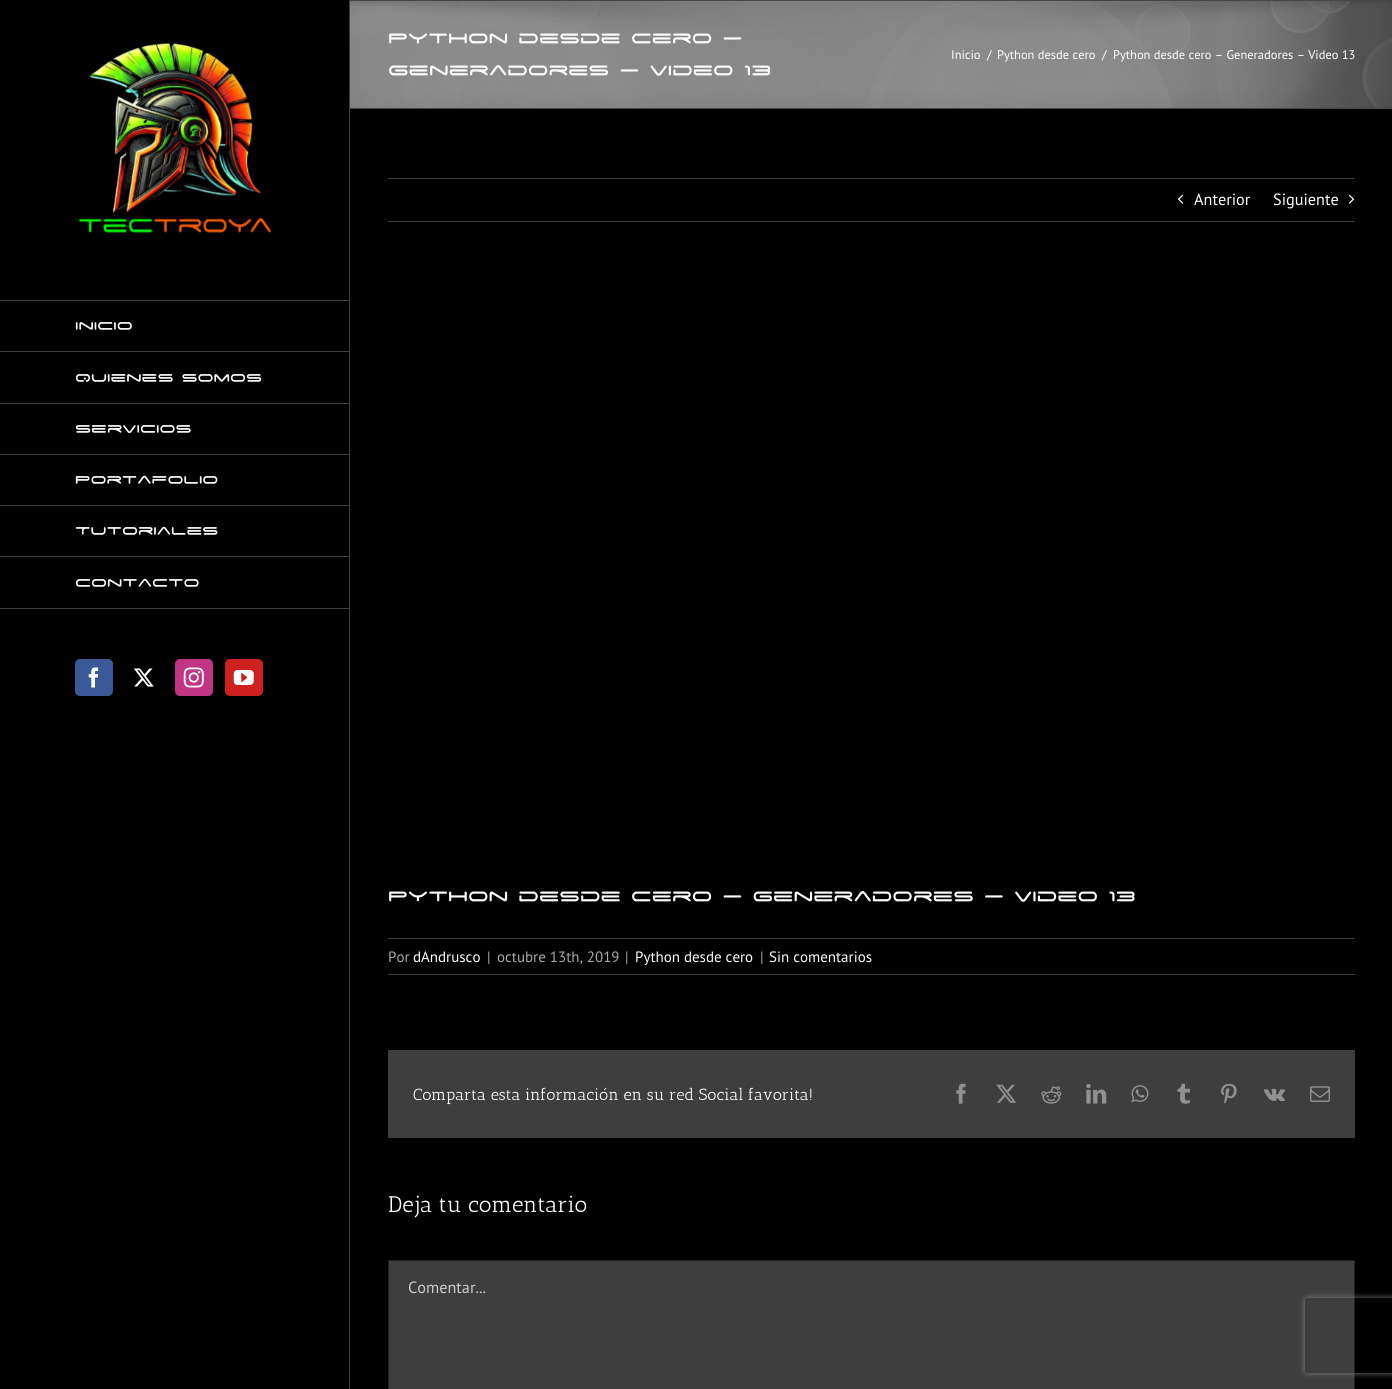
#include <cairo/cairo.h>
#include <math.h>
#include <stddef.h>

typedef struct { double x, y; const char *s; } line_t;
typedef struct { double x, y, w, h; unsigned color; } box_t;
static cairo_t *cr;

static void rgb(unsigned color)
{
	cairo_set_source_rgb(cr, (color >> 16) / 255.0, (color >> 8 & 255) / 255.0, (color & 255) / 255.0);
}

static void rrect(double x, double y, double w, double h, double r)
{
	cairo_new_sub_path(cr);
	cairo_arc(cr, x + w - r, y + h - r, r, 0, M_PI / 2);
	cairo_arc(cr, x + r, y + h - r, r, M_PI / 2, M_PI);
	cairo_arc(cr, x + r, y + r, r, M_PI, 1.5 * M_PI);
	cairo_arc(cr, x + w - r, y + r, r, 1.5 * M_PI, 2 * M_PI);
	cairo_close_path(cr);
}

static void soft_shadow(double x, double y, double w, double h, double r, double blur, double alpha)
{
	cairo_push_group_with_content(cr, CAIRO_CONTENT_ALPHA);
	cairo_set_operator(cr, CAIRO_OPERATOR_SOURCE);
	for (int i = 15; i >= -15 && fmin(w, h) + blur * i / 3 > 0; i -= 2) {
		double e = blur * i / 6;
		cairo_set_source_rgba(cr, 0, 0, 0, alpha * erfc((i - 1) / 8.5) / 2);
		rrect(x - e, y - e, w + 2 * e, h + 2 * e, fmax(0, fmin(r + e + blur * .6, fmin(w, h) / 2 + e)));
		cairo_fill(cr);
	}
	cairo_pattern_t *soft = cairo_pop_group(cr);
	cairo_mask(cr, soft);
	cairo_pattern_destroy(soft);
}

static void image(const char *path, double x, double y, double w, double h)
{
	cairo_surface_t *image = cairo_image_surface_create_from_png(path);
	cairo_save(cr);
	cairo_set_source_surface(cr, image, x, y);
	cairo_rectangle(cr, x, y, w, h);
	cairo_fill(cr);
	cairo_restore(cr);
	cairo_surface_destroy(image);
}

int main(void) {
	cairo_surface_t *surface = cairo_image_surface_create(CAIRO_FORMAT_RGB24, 1392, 1389);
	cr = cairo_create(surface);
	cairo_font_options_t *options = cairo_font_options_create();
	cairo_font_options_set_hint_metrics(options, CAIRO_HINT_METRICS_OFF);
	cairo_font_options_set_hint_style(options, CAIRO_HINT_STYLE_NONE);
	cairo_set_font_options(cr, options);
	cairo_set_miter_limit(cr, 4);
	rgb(0x000000);
	cairo_paint(cr);
	rgb(0x353535);
	cairo_rectangle(cr, 350, 1, 1042, 107);
	cairo_fill(cr);
	image("img/1.png", 350, 1, 1042, 107);
	rgb(0x464646);
	cairo_rectangle(cr, 350, 0, 1042, 1);
	cairo_fill(cr);
	cairo_rectangle(cr, 350, 108, 1042, 1);
	cairo_fill(cr);
	image("img/2.png", 78, 43, 194, 190);
	{
		static const box_t items[] = {
			{349, 0, 1, 1389, 0x3e3e3e},
			{0, 300, 350, 1, 0x3e3e3e},
			{0, 351, 350, 1, 0x3e3e3e},
			{0, 403, 350, 1, 0x3e3e3e},
			{0, 454, 350, 1, 0x3e3e3e},
			{0, 505, 350, 1, 0x3e3e3e},
			{0, 556, 350, 1, 0x3e3e3e},
			{0, 608, 350, 1, 0x3e3e3e},
		};
		for (size_t i = 0; i < sizeof items / sizeof *items; i++) {
			rgb(items[i].color);
			cairo_rectangle(cr, items[i].x, items[i].y, items[i].w, items[i].h);
			cairo_fill(cr);
		}
	}
	rgb(0x3b5998);
	rrect(75.5, 659.5, 37, 36, 4.5);
	cairo_fill_preserve(cr);
	cairo_set_line_width(cr, 1);
	cairo_stroke(cr);
	image("img/3.png", 88, 667, 11, 21);
	image("img/4.png", 133, 668, 21, 19);
	rgb(0xc13584);
	rrect(175.5, 659.5, 37, 36, 4.5);
	cairo_fill_preserve(cr);
	cairo_stroke(cr);
	image("img/5.png", 183, 667, 21, 21);
	rgb(0xcd201f);
	rrect(225.5, 659.5, 37, 36, 4.5);
	cairo_fill_preserve(cr);
	cairo_stroke(cr);
	image("img/6.png", 233, 670, 21, 15);
	rgb(0x3e3e3e);
	cairo_rectangle(cr, 388, 178, 967, 1);
	cairo_fill(cr);
	cairo_rectangle(cr, 388, 221, 967, 1);
	cairo_fill(cr);
	image("img/7.png", 1178, 194, 6, 10);
	image("img/8.png", 1348, 194, 7, 10);
	{
		static const box_t items[] = {
			{388, 938, 967, 1, 0x3e3e3e},
			{388, 974, 967, 1, 0x3e3e3e},
			{388, 1050, 967, 88, 0x3e3e3e},
		};
		for (size_t i = 0; i < sizeof items / sizeof *items; i++) {
			rgb(items[i].color);
			cairo_rectangle(cr, items[i].x, items[i].y, items[i].w, items[i].h);
			cairo_fill(cr);
		}
	}
	image("img/9.png", 956, 1083, 10, 21);
	image("img/10.png", 996, 1084, 20, 19);
	image("img/11.png", 1041, 1086, 21, 18);
	image("img/12.png", 1086, 1083, 21, 21);
	image("img/13.png", 1131, 1085, 18, 18);
	image("img/14.png", 1177, 1083, 13, 21);
	image("img/15.png", 1221, 1083, 16, 21);
	image("img/16.png", 1263, 1088, 23, 14);
	image("img/17.png", 1310, 1086, 20, 16);
	cairo_rectangle(cr, 388.5, 1260.5, 966, 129);
	cairo_fill_preserve(cr);
	rgb(0x212122);
	cairo_stroke(cr);
	cairo_save(cr);
	cairo_set_fill_rule(cr, CAIRO_FILL_RULE_EVEN_ODD);
	cairo_new_path(cr);
	cairo_move_to(cr, 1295, 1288);
	cairo_line_to(cr, 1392, 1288);
	cairo_line_to(cr, 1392, 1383);
	cairo_line_to(cr, 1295, 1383);
	cairo_close_path(cr);
	cairo_move_to(cr, 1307.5, 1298);
	cairo_line_to(cr, 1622.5, 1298);
	cairo_curve_to(cr, 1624, 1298, 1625, 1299, 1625, 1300.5);
	cairo_line_to(cr, 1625, 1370.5);
	cairo_curve_to(cr, 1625, 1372, 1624, 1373, 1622.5, 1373);
	cairo_line_to(cr, 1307.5, 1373);
	cairo_curve_to(cr, 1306, 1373, 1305, 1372, 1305, 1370.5);
	cairo_line_to(cr, 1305, 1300.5);
	cairo_curve_to(cr, 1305, 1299, 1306, 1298, 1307.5, 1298);
	cairo_close_path(cr);
	cairo_clip(cr);
	rgb(0x808080);
	soft_shadow(1305, 1298, 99, 75, 2.5, 3, 1);
	cairo_restore(cr);
	cairo_select_font_face(cr, "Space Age", CAIRO_FONT_SLANT_NORMAL, CAIRO_FONT_WEIGHT_NORMAL);
	cairo_set_font_size(cr, 22.5);
	rgb(0xffffff);
	cairo_move_to(cr, 388, 45);
	cairo_show_text(cr, "Python desde cero –");
	cairo_move_to(cr, 388, 77);
	cairo_show_text(cr, "Generadores – Video 13");
	cairo_select_font_face(cr, "PT Sans", CAIRO_FONT_SLANT_NORMAL, CAIRO_FONT_WEIGHT_NORMAL);
	cairo_set_font_size(cr, 12.5);
	{
		static const line_t items[] = {
			{951, 59, "Inicio"},
			{987, 59, "/"},
			{997, 59, "Python desde cero"},
			{1102, 59, "/"},
			{1113, 59, "Python desde cero – Generadores – Video 13"},
		};
		for (size_t i = 0; i < sizeof items / sizeof *items; i++) {
			cairo_move_to(cr, items[i].x, items[i].y);
			cairo_show_text(cr, items[i].s);
		}
	}
	cairo_select_font_face(cr, "Space Age", CAIRO_FONT_SLANT_NORMAL, CAIRO_FONT_WEIGHT_NORMAL);
	cairo_set_font_size(cr, 17.5);
	{
		static const line_t items[] = {
			{75, 331, "Inicio"},
			{75, 383, "Quienes somos"},
			{75, 434, "Servicios"},
			{75, 485, "Portafolio"},
			{75, 536, "Tutoriales"},
			{75, 588, "Contacto"},
		};
		for (size_t i = 0; i < sizeof items / sizeof *items; i++) {
			cairo_move_to(cr, items[i].x, items[i].y);
			cairo_show_text(cr, items[i].s);
		}
	}
	cairo_select_font_face(cr, "PT Sans", CAIRO_FONT_SLANT_NORMAL, CAIRO_FONT_WEIGHT_NORMAL);
	cairo_set_font_size(cr, 16.25);
	cairo_move_to(cr, 1194, 205);
	cairo_show_text(cr, "Anterior");
	cairo_move_to(cr, 1273, 205);
	cairo_show_text(cr, "Siguiente");
	cairo_select_font_face(cr, "Space Age", CAIRO_FONT_SLANT_NORMAL, CAIRO_FONT_WEIGHT_NORMAL);
	cairo_set_font_size(cr, 22.5);
	cairo_move_to(cr, 388, 903);
	cairo_show_text(cr, "Python desde cero – Generadores – Video 13");
	cairo_select_font_face(cr, "PT Sans", CAIRO_FONT_SLANT_NORMAL, CAIRO_FONT_WEIGHT_NORMAL);
	cairo_set_font_size(cr, 15);
	rgb(0xaaa9a9);
	cairo_move_to(cr, 388, 962);
	cairo_show_text(cr, "Por");
	rgb(0xffffff);
	cairo_move_to(cr, 413, 962);
	cairo_show_text(cr, "dAndrusco");
	rgb(0xaaa9a9);
	{
		static const line_t items[] = {
			{487, 962, "|"},
			{497, 962, "octubre 13th, 2019"},
			{625, 962, "|"},
		};
		for (size_t i = 0; i < sizeof items / sizeof *items; i++) {
			cairo_move_to(cr, items[i].x, items[i].y);
			cairo_show_text(cr, items[i].s);
		}
	}
	rgb(0xffffff);
	cairo_move_to(cr, 635, 962);
	cairo_show_text(cr, "Python desde cero");
	rgb(0xaaa9a9);
	cairo_move_to(cr, 760, 962);
	cairo_show_text(cr, "|");
	rgb(0xffffff);
	cairo_move_to(cr, 769, 962);
	cairo_show_text(cr, "Sin comentarios");
	cairo_select_font_face(cr, "Antic Slab", CAIRO_FONT_SLANT_NORMAL, CAIRO_FONT_WEIGHT_NORMAL);
	cairo_set_font_size(cr, 16.25);
	cairo_move_to(cr, 413, 1100);
	cairo_show_text(cr, "Comparta esta información en su red Social favorita!");
	cairo_set_font_size(cr, 22.5);
	cairo_move_to(cr, 388, 1212);
	cairo_show_text(cr, "Deja tu comentario");
	cairo_select_font_face(cr, "PT Sans", CAIRO_FONT_SLANT_NORMAL, CAIRO_FONT_WEIGHT_NORMAL);
	cairo_set_font_size(cr, 16.25);
	rgb(0xcccccc);
	cairo_move_to(cr, 408, 1293);
	cairo_show_text(cr, "Comentar...");
	cairo_surface_write_to_png(surface, "page.png");
	cairo_font_options_destroy(options);
	cairo_destroy(cr);
	cairo_surface_destroy(surface);
	return 0;
}
